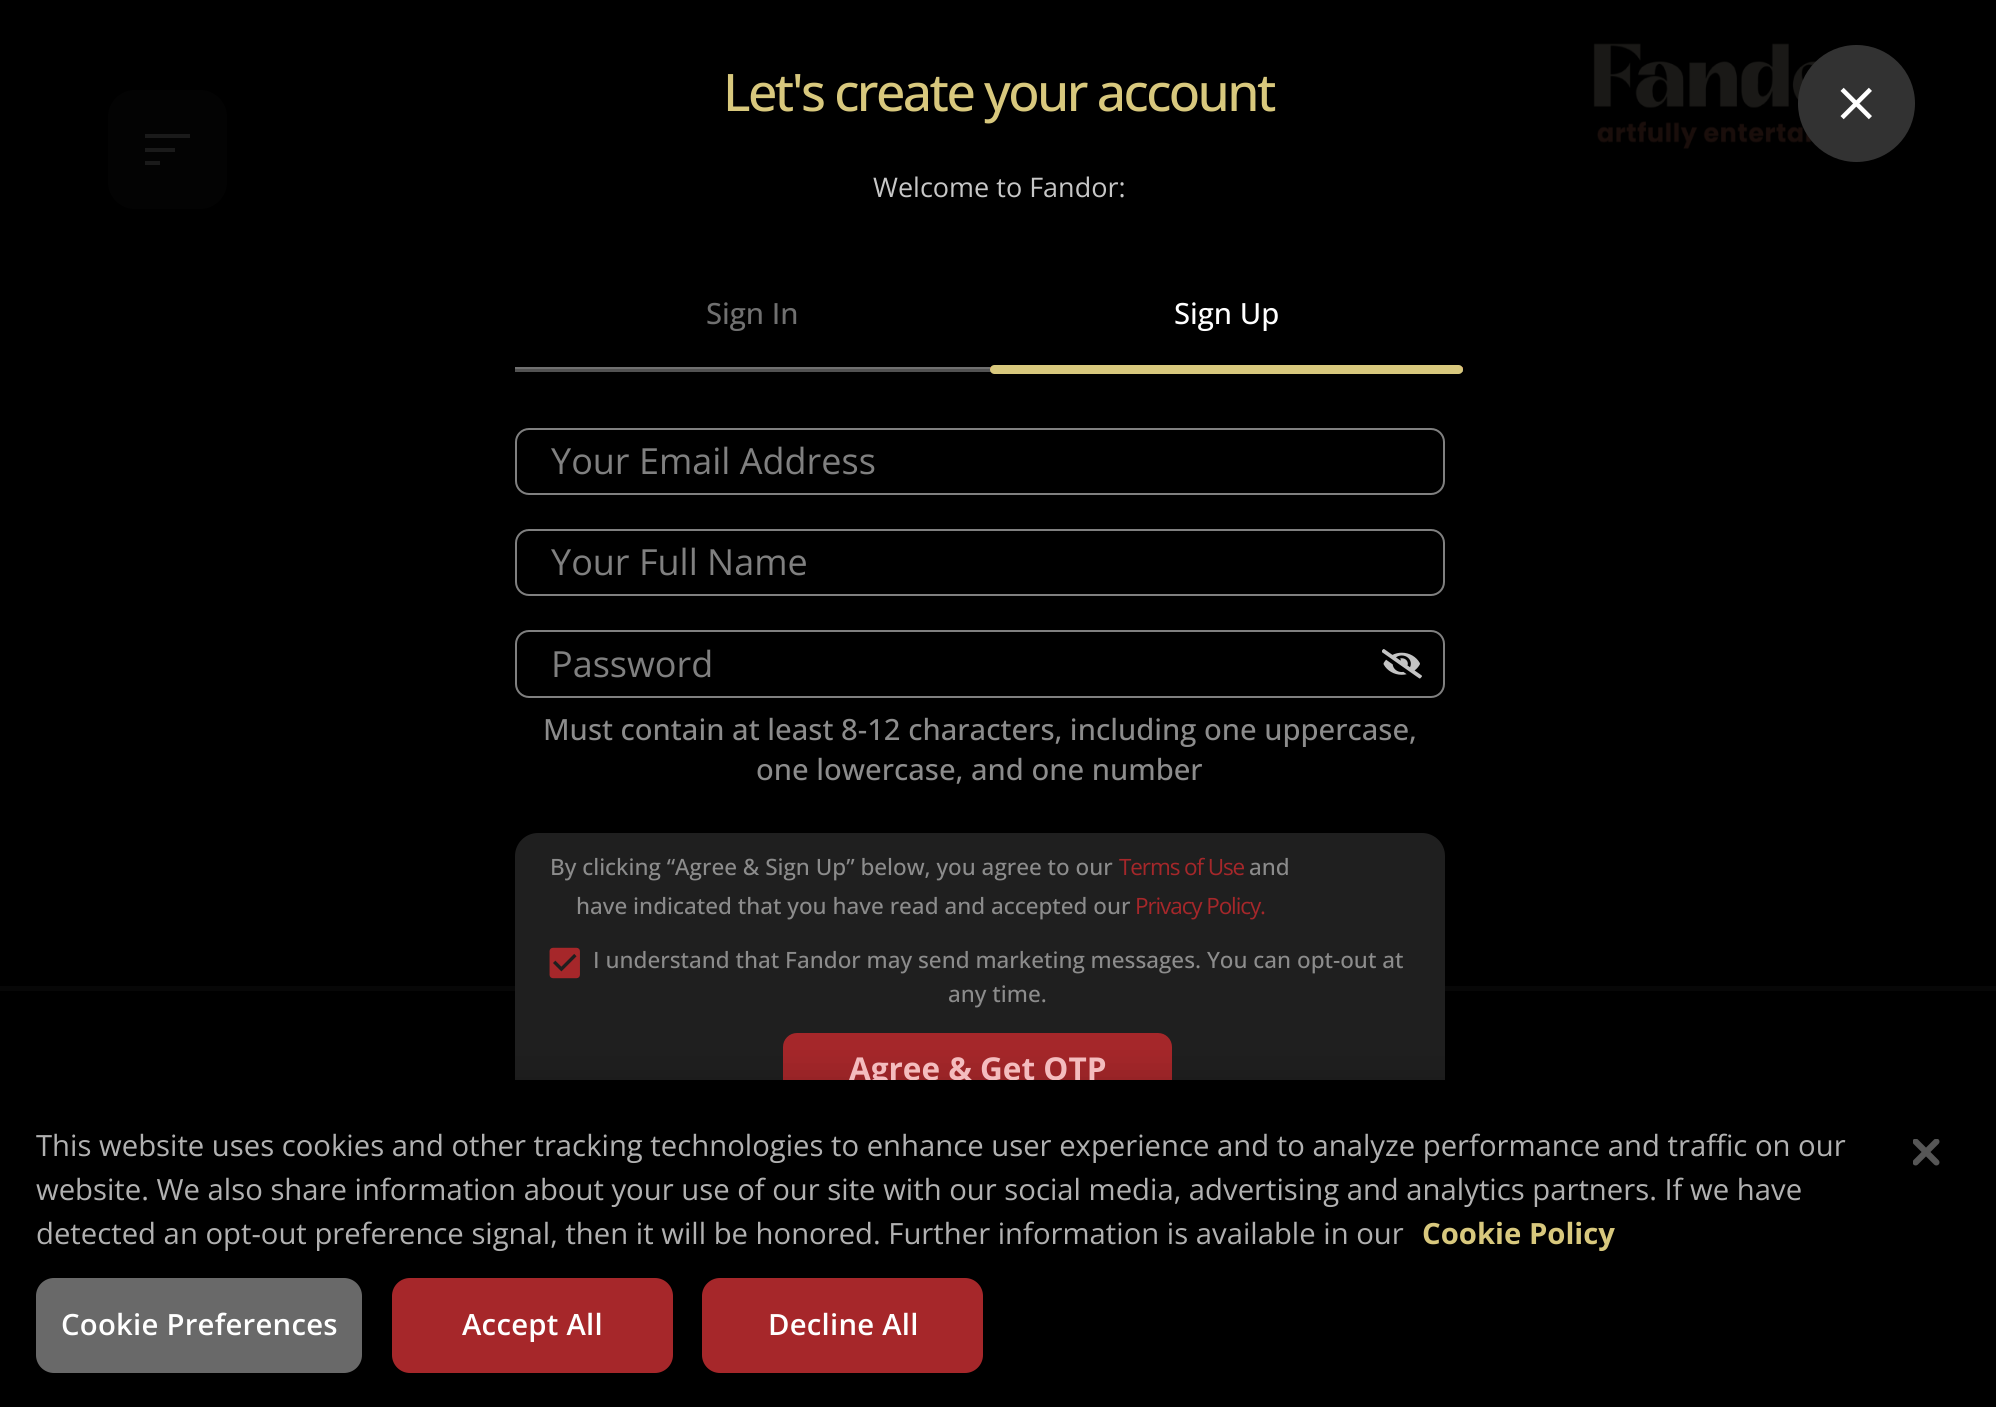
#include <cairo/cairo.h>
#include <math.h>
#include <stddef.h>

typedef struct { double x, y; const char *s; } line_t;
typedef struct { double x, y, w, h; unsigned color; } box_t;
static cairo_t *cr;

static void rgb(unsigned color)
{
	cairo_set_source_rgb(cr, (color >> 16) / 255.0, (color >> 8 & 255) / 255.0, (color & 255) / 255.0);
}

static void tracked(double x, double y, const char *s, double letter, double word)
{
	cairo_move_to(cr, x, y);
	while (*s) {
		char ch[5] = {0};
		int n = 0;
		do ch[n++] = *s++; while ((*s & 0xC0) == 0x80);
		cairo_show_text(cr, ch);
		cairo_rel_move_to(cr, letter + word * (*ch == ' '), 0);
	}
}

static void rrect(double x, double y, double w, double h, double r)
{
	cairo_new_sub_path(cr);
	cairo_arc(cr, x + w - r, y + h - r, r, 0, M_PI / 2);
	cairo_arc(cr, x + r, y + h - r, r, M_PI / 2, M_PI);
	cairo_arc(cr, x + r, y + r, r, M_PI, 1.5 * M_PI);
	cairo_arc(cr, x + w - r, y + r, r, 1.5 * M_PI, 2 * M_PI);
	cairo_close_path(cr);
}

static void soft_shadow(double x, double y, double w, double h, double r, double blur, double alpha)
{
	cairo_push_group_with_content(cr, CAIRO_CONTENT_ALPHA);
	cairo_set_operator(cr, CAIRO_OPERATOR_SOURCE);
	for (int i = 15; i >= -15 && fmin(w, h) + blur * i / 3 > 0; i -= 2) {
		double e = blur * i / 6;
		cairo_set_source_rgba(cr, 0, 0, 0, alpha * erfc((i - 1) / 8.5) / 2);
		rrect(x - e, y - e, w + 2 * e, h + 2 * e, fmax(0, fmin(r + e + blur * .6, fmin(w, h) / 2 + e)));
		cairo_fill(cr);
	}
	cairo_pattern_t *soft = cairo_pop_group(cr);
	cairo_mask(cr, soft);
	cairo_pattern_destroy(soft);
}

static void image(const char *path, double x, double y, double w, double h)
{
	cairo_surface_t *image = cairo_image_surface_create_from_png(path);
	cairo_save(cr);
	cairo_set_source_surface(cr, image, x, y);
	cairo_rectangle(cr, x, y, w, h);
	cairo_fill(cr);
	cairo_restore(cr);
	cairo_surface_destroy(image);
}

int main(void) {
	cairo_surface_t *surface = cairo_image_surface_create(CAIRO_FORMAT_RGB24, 1996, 1407);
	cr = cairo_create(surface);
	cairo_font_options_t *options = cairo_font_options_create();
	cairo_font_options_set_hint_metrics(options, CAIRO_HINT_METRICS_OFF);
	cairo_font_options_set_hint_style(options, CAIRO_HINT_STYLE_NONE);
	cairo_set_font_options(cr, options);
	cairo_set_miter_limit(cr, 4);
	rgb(0x000000);
	cairo_paint(cr);
	rgb(0x030303);
	rrect(108, 90, 119, 119, 27);
	cairo_fill(cr);
	rgb(0x1a1a1a);
	cairo_new_path(cr);
	cairo_move_to(cr, 145, 165);
	cairo_line_to(cr, 145, 161);
	cairo_line_to(cr, 160, 161);
	cairo_line_to(cr, 160, 165);
	cairo_close_path(cr);
	cairo_move_to(cr, 145, 152);
	cairo_line_to(cr, 145, 148);
	cairo_line_to(cr, 175, 148);
	cairo_line_to(cr, 175, 152);
	cairo_close_path(cr);
	cairo_move_to(cr, 145, 138);
	cairo_line_to(cr, 145, 134);
	cairo_line_to(cr, 190, 134);
	cairo_line_to(cr, 190, 138);
	cairo_close_path(cr);
	cairo_fill(cr);
	image("img/1.png", 1593, 43, 224, 106);
	{
		static const box_t items[] = {
			{0, 986, 1996, 5, 0x070707},
			{515, 369, 948, 3, 0x525252},
			{515, 367, 475, 2, 0x707070},
			{990, 367, 473, 2, 0xa6272a},
		};
		for (size_t i = 0; i < sizeof items / sizeof *items; i++) {
			rgb(items[i].color);
			cairo_rectangle(cr, items[i].x, items[i].y, items[i].w, items[i].h);
			cairo_fill(cr);
		}
	}
	rgb(0xd8c87d);
	rrect(990, 365, 473, 9, 4.5);
	cairo_fill(cr);
	rrect(516, 429, 928, 65, 13);
	rgb(0x808080);
	cairo_stroke(cr);
	rrect(516, 530, 928, 65, 13);
	cairo_stroke(cr);
	rrect(516, 631, 928, 66, 13);
	cairo_stroke(cr);
	image("img/2.png", 1382, 649, 40, 30);
	rgb(0x1f1f1f);
	rrect(515, 833, 930, 294, 23);
	cairo_fill(cr);
	image("img/3.png", 549, 947, 31, 32);
	rgb(0xa6272a);
	rrect(783, 1033, 389, 67, 14);
	cairo_fill(cr);
	rgb(0x323232);
	cairo_arc(cr, 1856.5, 103.5, 58.5, 0, 2 * M_PI);
	cairo_fill(cr);
	image("img/4.png", 1840, 87, 32, 33);
	rgb(0x000000);
	soft_shadow(0, 1080, 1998, 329, 0, 20, 0.2);
	rgb(0x696969);
	rrect(37, 1279, 324, 93, 17);
	cairo_fill_preserve(cr);
	cairo_stroke(cr);
	rgb(0xa6272a);
	rrect(393, 1279, 279, 93, 17);
	cairo_fill_preserve(cr);
	cairo_stroke(cr);
	rrect(703, 1279, 279, 93, 17);
	cairo_fill_preserve(cr);
	cairo_stroke(cr);
	image("img/5.png", 1913, 1139, 27, 27);
	cairo_select_font_face(cr, "Open Sans Medium", CAIRO_FONT_SLANT_NORMAL, CAIRO_FONT_WEIGHT_NORMAL);
	cairo_set_font_size(cr, 51.75);
	rgb(0xd8c87d);
	tracked(723, 111, "Let's create your account", -2.6, 0);
	cairo_select_font_face(cr, "Open Sans", CAIRO_FONT_SLANT_NORMAL, CAIRO_FONT_WEIGHT_NORMAL);
	cairo_set_font_size(cr, 27);
	rgb(0xc7c7c7);
	cairo_move_to(cr, 873, 197);
	cairo_show_text(cr, "Welcome to Fandor:");
	cairo_select_font_face(cr, "Open Sans Medium", CAIRO_FONT_SLANT_NORMAL, CAIRO_FONT_WEIGHT_NORMAL);
	cairo_set_font_size(cr, 29.25);
	rgb(0x707070);
	cairo_move_to(cr, 706, 324);
	cairo_show_text(cr, "Sign In");
	rgb(0xffffff);
	cairo_move_to(cr, 1174, 324);
	cairo_show_text(cr, "Sign Up");
	cairo_select_font_face(cr, "Open Sans", CAIRO_FONT_SLANT_NORMAL, CAIRO_FONT_WEIGHT_NORMAL);
	cairo_set_font_size(cr, 36);
	rgb(0x808080);
	{
		static const line_t items[] = {
			{551, 474, "Your Email Address"},
			{551, 575, "Your Full Name"},
			{551, 677, "Password"},
		};
		for (size_t i = 0; i < sizeof items / sizeof *items; i++) {
			cairo_move_to(cr, items[i].x, items[i].y);
			cairo_show_text(cr, items[i].s);
		}
	}
	cairo_select_font_face(cr, "Open Sans Medium", CAIRO_FONT_SLANT_NORMAL, CAIRO_FONT_WEIGHT_NORMAL);
	cairo_set_font_size(cr, 29.25);
	rgb(0x8c8c8c);
	cairo_move_to(cr, 543, 740);
	cairo_show_text(cr, "Must contain at least 8-12 characters, including one uppercase,");
	cairo_move_to(cr, 756, 780);
	cairo_show_text(cr, "one lowercase, and one number");
	cairo_set_font_size(cr, 22.5);
	cairo_move_to(cr, 550, 875);
	cairo_show_text(cr, "By clicking “Agree & Sign Up” below, you agree to our");
	cairo_select_font_face(cr, "Open Sans", CAIRO_FONT_SLANT_NORMAL, CAIRO_FONT_WEIGHT_NORMAL);
	rgb(0xa6272a);
	tracked(1119, 875, "Terms of Use", -1.1, 0);
	cairo_select_font_face(cr, "Open Sans Medium", CAIRO_FONT_SLANT_NORMAL, CAIRO_FONT_WEIGHT_NORMAL);
	rgb(0x8c8c8c);
	cairo_move_to(cr, 1249, 875);
	cairo_show_text(cr, "and");
	cairo_move_to(cr, 576, 914);
	cairo_show_text(cr, "have indicated that you have read and accepted our");
	cairo_select_font_face(cr, "Open Sans", CAIRO_FONT_SLANT_NORMAL, CAIRO_FONT_WEIGHT_NORMAL);
	rgb(0xa6272a);
	tracked(1135, 914, "Privacy Policy.", -1.1, 0);
	cairo_select_font_face(cr, "Open Sans Medium", CAIRO_FONT_SLANT_NORMAL, CAIRO_FONT_WEIGHT_NORMAL);
	rgb(0x8c8c8c);
	cairo_move_to(cr, 593, 968);
	cairo_show_text(cr, "I understand that Fandor may send marketing messages. You can opt-out at");
	cairo_move_to(cr, 948, 1002);
	cairo_show_text(cr, "any time.");
	cairo_select_font_face(cr, "Open Sans", CAIRO_FONT_SLANT_NORMAL, CAIRO_FONT_WEIGHT_BOLD);
	cairo_set_font_size(cr, 31.5);
	rgb(0xf4bcbe);
	cairo_move_to(cr, 849, 1080);
	cairo_show_text(cr, "Agree & Get OTP");
	rgb(0x000000);
	cairo_rectangle(cr, 515, 1080, 930, 47);
	cairo_fill(cr);
	cairo_select_font_face(cr, "Open Sans", CAIRO_FONT_SLANT_NORMAL, CAIRO_FONT_WEIGHT_NORMAL);
	cairo_set_font_size(cr, 29.27);
	rgb(0xb1b1b1);
	{
		static const line_t items[] = {
			{36, 1156, "This website uses cookies and other tracking technologies to enhance user experience and to analyze performance and traffic on our"},
			{36, 1200, "website. We also share information about your use of our site with our social media, advertising and analytics partners. If we have"},
			{36, 1244, "detected an opt-out preference signal, then it will be honored. Further information is available in our"},
		};
		for (size_t i = 0; i < sizeof items / sizeof *items; i++) {
			cairo_move_to(cr, items[i].x, items[i].y);
			cairo_show_text(cr, items[i].s);
		}
	}
	cairo_select_font_face(cr, "Open Sans", CAIRO_FONT_SLANT_NORMAL, CAIRO_FONT_WEIGHT_BOLD);
	rgb(0xd8c87d);
	cairo_move_to(cr, 1422, 1244);
	cairo_show_text(cr, "Cookie Policy");
	cairo_select_font_face(cr, "Open Sans SemiBold", CAIRO_FONT_SLANT_NORMAL, CAIRO_FONT_WEIGHT_NORMAL);
	rgb(0xffffff);
	{
		static const line_t items[] = {
			{61, 1335, "Cookie Preferences"},
			{462, 1335, "Accept All"},
			{768, 1335, "Decline All"},
		};
		for (size_t i = 0; i < sizeof items / sizeof *items; i++) {
			tracked(items[i].x, items[i].y, items[i].s, 0.25, 0);
		}
	}
	cairo_surface_write_to_png(surface, "page.png");
	cairo_font_options_destroy(options);
	cairo_destroy(cr);
	cairo_surface_destroy(surface);
	return 0;
}
